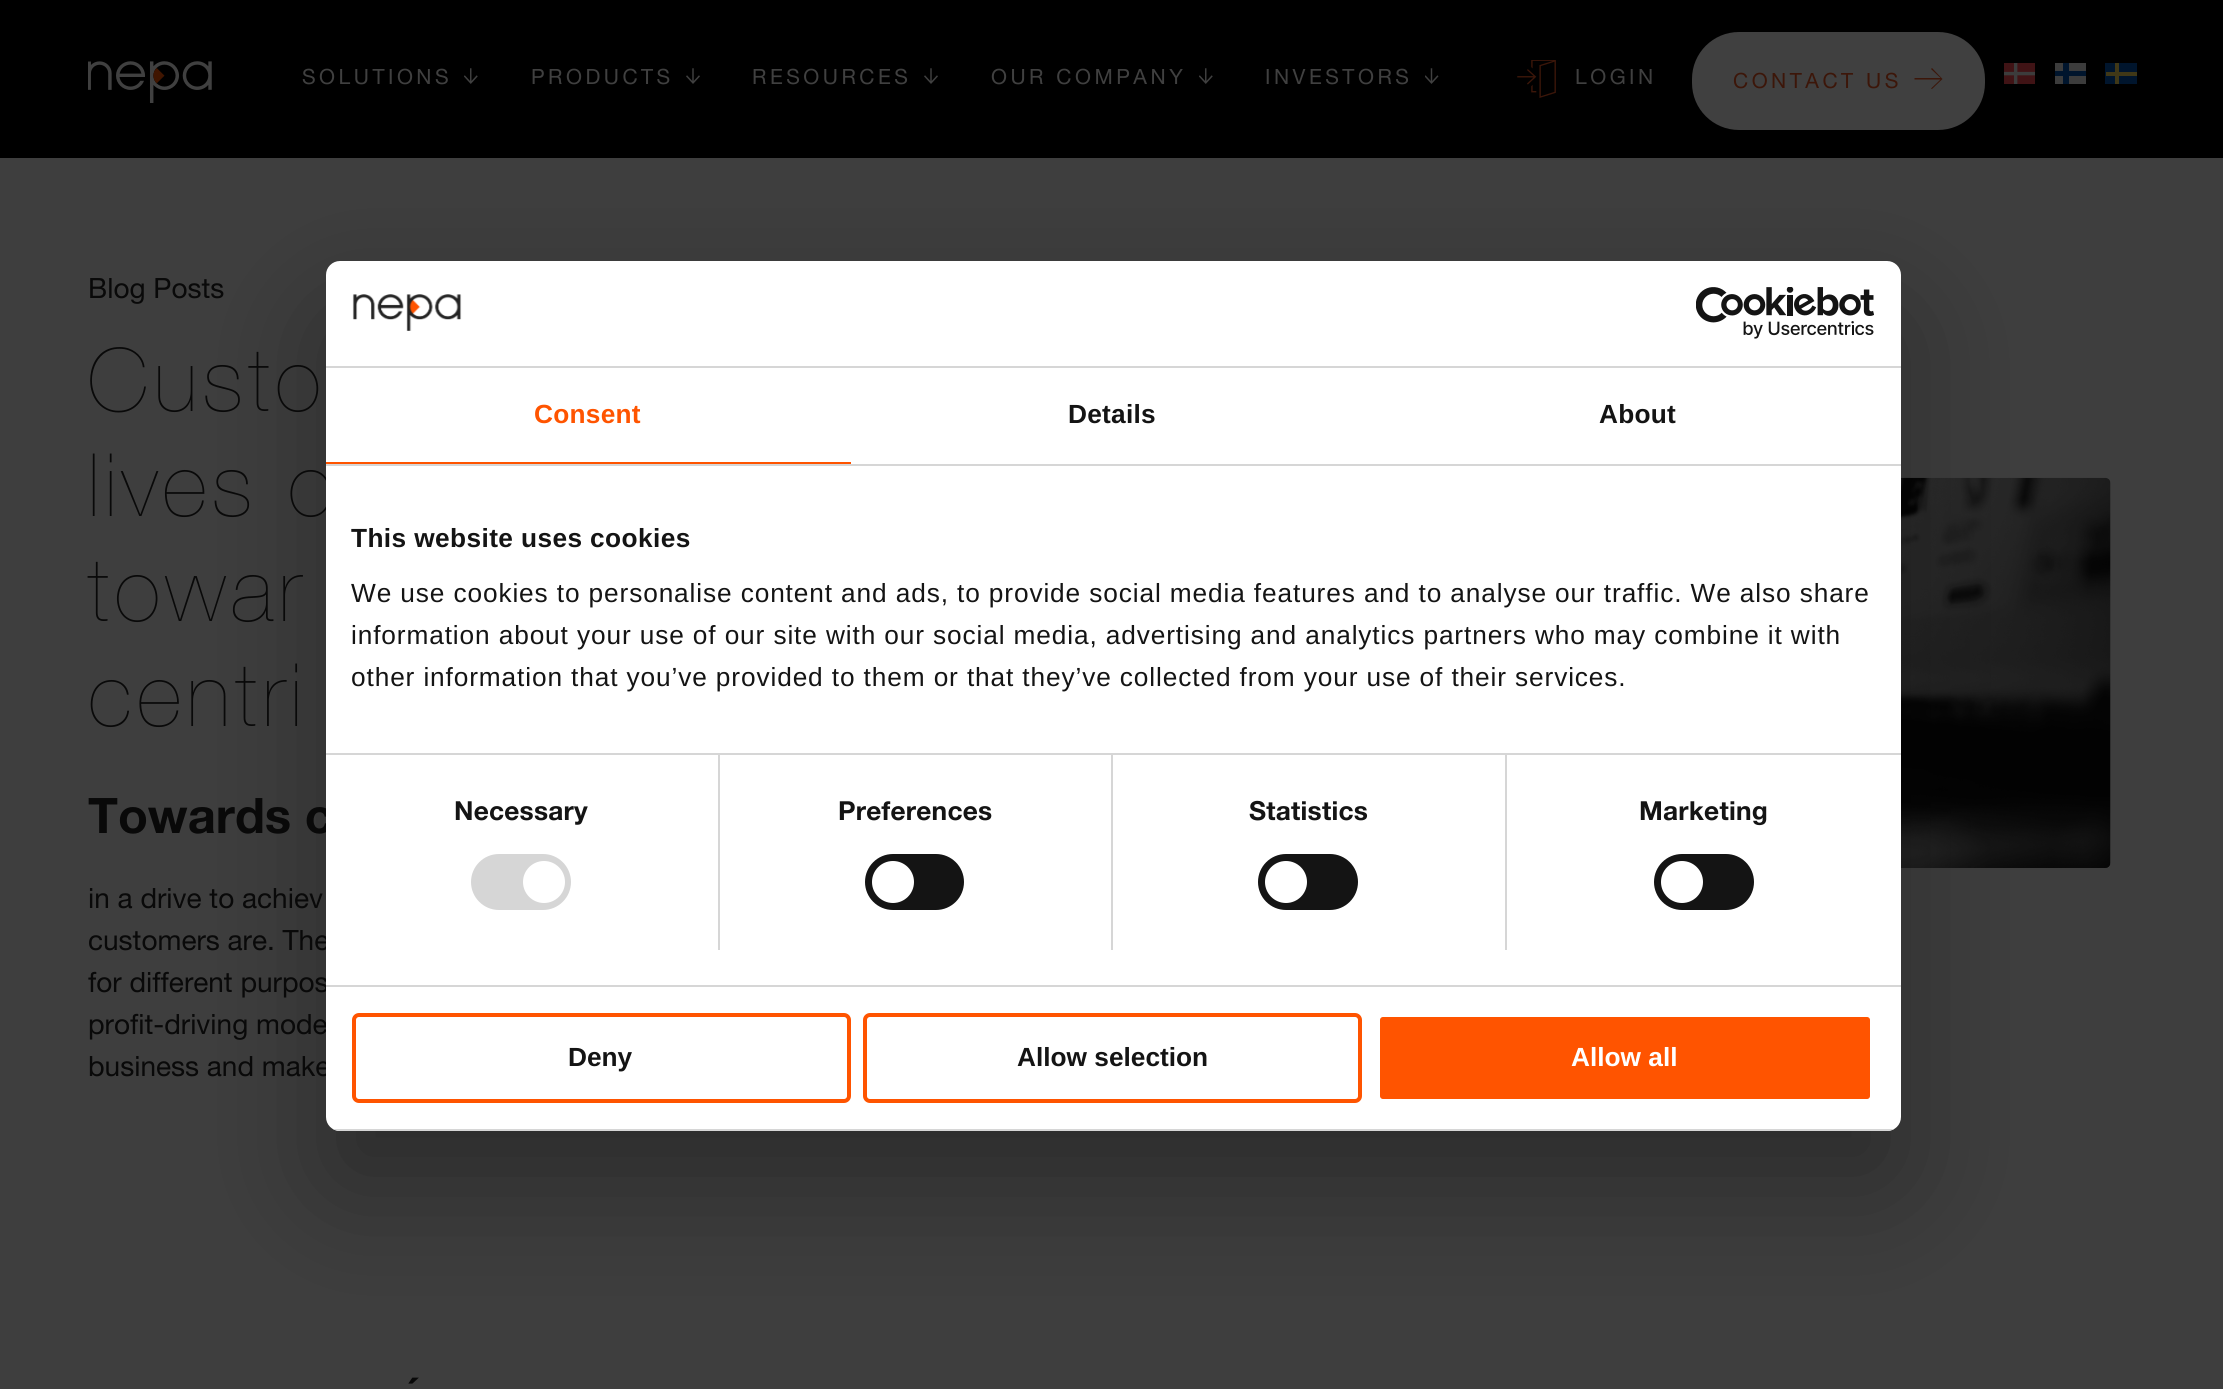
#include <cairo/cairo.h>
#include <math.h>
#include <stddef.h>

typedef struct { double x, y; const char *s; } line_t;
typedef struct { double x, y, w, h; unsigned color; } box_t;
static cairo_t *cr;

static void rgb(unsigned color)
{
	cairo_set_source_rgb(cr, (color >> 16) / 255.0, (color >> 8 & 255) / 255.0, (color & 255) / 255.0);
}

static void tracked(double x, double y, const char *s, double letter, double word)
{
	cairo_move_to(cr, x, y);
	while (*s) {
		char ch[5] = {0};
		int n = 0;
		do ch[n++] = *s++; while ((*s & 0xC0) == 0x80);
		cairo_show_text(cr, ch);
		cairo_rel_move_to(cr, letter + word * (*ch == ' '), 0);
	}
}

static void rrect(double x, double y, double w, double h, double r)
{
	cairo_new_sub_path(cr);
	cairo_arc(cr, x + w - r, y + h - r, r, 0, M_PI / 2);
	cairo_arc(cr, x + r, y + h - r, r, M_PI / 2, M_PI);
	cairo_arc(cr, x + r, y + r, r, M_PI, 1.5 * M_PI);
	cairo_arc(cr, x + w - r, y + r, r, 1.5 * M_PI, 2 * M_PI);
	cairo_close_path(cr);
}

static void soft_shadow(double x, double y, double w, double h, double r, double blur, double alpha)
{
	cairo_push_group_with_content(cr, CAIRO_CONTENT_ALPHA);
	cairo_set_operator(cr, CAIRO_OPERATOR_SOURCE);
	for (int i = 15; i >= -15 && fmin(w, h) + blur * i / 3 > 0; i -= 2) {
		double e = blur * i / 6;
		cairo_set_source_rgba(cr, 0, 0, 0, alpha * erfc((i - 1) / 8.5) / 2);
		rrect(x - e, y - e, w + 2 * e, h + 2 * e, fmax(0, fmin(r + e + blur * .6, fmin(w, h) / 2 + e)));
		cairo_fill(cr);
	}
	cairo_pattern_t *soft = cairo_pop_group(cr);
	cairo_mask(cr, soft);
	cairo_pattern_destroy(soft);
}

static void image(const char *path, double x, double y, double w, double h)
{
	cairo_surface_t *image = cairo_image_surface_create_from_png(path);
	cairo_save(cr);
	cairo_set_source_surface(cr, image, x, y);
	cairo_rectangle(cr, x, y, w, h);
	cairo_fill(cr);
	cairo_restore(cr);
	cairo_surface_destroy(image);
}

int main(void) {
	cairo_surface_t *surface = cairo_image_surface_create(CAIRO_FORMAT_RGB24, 2223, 1389);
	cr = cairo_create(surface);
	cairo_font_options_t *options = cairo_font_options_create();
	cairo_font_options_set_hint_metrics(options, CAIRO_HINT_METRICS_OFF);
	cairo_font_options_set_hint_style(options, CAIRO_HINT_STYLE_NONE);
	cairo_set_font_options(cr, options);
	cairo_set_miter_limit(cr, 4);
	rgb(0x3e3e3e);
	cairo_paint(cr);
	rgb(0x000000);
	cairo_rectangle(cr, 0, 0, 2223, 158);
	cairo_fill(cr);
	image("img/1.png", 88, 61, 124, 42);
	image("img/2.png", 464, 68, 14, 16);
	image("img/3.png", 686, 68, 14, 16);
	image("img/3.png", 924, 68, 14, 16);
	image("img/2.png", 1199, 68, 14, 16);
	image("img/4.png", 1425, 68, 14, 16);
	image("img/5.png", 1517, 60, 39, 38);
	rgb(0x404040);
	rrect(1692, 32, 293, 98, 47);
	cairo_fill(cr);
	rgb(0x3c1609);
	cairo_new_path(cr);
	cairo_move_to(cr, 1931, 88.5);
	cairo_line_to(cr, 1932, 89);
	cairo_line_to(cr, 1942.5, 79);
	cairo_line_to(cr, 1932, 68);
	cairo_line_to(cr, 1931, 69);
	cairo_line_to(cr, 1940.5, 78);
	cairo_line_to(cr, 1914.5, 78);
	cairo_line_to(cr, 1914.5, 79.5);
	cairo_line_to(cr, 1940.5, 79.5);
	cairo_close_path(cr);
	cairo_fill(cr);
	image("img/6.png", 2004, 63, 31, 21);
	{
		static const box_t items[] = {
			{2055, 63, 31, 21, 0x3c3c3c},
			{2055, 71, 31, 5, 0x00152d},
			{2063, 63, 6, 21, 0x00152d},
			{2105, 63, 32, 21, 0x00152d},
			{2115, 63, 4, 21, 0x403817},
			{2106, 72, 31, 4, 0x403817},
		};
		for (size_t i = 0; i < sizeof items / sizeof *items; i++) {
			rgb(items[i].color);
			cairo_rectangle(cr, items[i].x, items[i].y, items[i].w, items[i].h);
			cairo_fill(cr);
		}
	}
	image("img/7.png", 1901, 477, 210, 391);
	rgb(0x000000);
	soft_shadow(326, 317, 1575, 870, 14, 59.5, 0.3);
	cairo_select_font_face(cr, "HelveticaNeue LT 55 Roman", CAIRO_FONT_SLANT_NORMAL, CAIRO_FONT_WEIGHT_NORMAL);
	cairo_set_font_size(cr, 21);
	rgb(0x404040);
	{
		static const line_t items[] = {
			{302, 84, "SOLUTIONS"},
			{531, 84, "PRODUCTS"},
			{752, 84, "RESOURCES"},
			{991, 84, "OUR COMPANY"},
			{1265, 84, "INVESTORS"},
			{1575, 84, "LOGIN"},
		};
		for (size_t i = 0; i < sizeof items / sizeof *items; i++) {
			tracked(items[i].x, items[i].y, items[i].s, 3.5, 0);
		}
	}
	rgb(0x3c1609);
	tracked(1733, 88, "CONTACT US", 3.5, 0);
	cairo_set_font_size(cr, 28);
	rgb(0x090909);
	cairo_move_to(cr, 88, 298);
	cairo_show_text(cr, "Blog Posts");
	cairo_select_font_face(cr, "Helvetica Neue Light", CAIRO_FONT_SLANT_NORMAL, CAIRO_FONT_WEIGHT_NORMAL);
	cairo_set_font_size(cr, 87.5);
	{
		static const line_t items[] = {
			{88, 411, "Custo"},
			{88, 516, "lives o"},
			{88, 621, "towar"},
			{88, 726, "centri"},
		};
		for (size_t i = 0; i < sizeof items / sizeof *items; i++) {
			tracked(items[i].x, items[i].y, items[i].s, 5.5, 0);
		}
	}
	cairo_select_font_face(cr, "Helvetica Neue", CAIRO_FONT_SLANT_NORMAL, CAIRO_FONT_WEIGHT_BOLD);
	cairo_set_font_size(cr, 49);
	cairo_move_to(cr, 88, 833);
	cairo_show_text(cr, "Towards c");
	cairo_select_font_face(cr, "HelveticaNeue LT 55 Roman", CAIRO_FONT_SLANT_NORMAL, CAIRO_FONT_WEIGHT_NORMAL);
	cairo_set_font_size(cr, 28);
	{
		static const line_t items[] = {
			{88, 908, "in a drive to achiev"},
			{88, 950, "customers are. The"},
			{88, 992, "for different purpos"},
			{88, 1034, "profit-driving mode"},
			{88, 1076, "business and make"},
		};
		for (size_t i = 0; i < sizeof items / sizeof *items; i++) {
			cairo_move_to(cr, items[i].x, items[i].y);
			cairo_show_text(cr, items[i].s);
		}
	}
	cairo_select_font_face(cr, "Helvetica Neue", CAIRO_FONT_SLANT_NORMAL, CAIRO_FONT_WEIGHT_BOLD);
	cairo_set_font_size(cr, 42);
	cairo_move_to(cr, 406, 1408);
	cairo_show_text(cr, "´");
	rgb(0xffffff);
	rrect(326, 261, 1575, 870, 14);
	cairo_fill(cr);
	rgb(0xd6d6d6);
	cairo_rectangle(cr, 326, 366, 1575, 2);
	cairo_fill(cr);
	image("img/8.png", 352, 294, 110, 37);
	image("img/9.png", 1696, 287, 178, 52);
	cairo_rectangle(cr, 326, 464, 1575, 2);
	cairo_fill(cr);
	rgb(0xff5400);
	cairo_rectangle(cr, 326, 462, 525, 2);
	cairo_fill(cr);
	cairo_select_font_face(cr, "Liberation Sans", CAIRO_FONT_SLANT_NORMAL, CAIRO_FONT_WEIGHT_BOLD);
	cairo_set_font_size(cr, 26.25);
	tracked(534, 423, "Consent", 0.25, 0);
	rgb(0x141414);
	tracked(1068, 423, "Details", 0.25, 0);
	tracked(1599, 423, "About", 0.25, 0);
	tracked(351, 547, "This website uses cookies", 0.4, 0);
	cairo_select_font_face(cr, "Liberation Sans", CAIRO_FONT_SLANT_NORMAL, CAIRO_FONT_WEIGHT_NORMAL);
	{
		static const line_t items[] = {
			{351, 602, "We use cookies to personalise content and ads, to provide social media features and to analyse our traffic. We also share"},
			{351, 644, "information about your use of our site with our social media, advertising and analytics partners who may combine it with"},
			{351, 686, "other information that you’ve provided to them or that they’ve collected from your use of their services."},
		};
		for (size_t i = 0; i < sizeof items / sizeof *items; i++) {
			tracked(items[i].x, items[i].y, items[i].s, 0.88, 0);
		}
	}
	rgb(0xd6d6d6);
	cairo_rectangle(cr, 326, 985, 1575, 2);
	cairo_fill(cr);
	cairo_rectangle(cr, 718, 754, 2, 196);
	cairo_fill(cr);
	cairo_select_font_face(cr, "Helvetica Neue", CAIRO_FONT_SLANT_NORMAL, CAIRO_FONT_WEIGHT_BOLD);
	rgb(0x141414);
	tracked(454, 820, "Necessary", 0.25, 0);
	rgb(0xd6d6d6);
	rrect(471, 854, 100, 56, 28);
	cairo_fill(cr);
	rgb(0xffffff);
	cairo_arc(cr, 544, 882, 21, 0, 2 * M_PI);
	cairo_fill(cr);
	rgb(0xd6d6d6);
	cairo_rectangle(cr, 1111, 754, 2, 196);
	cairo_fill(cr);
	rgb(0x141414);
	tracked(838, 820, "Preferences", 0.25, 0);
	rrect(865, 854, 99, 56, 28);
	cairo_fill(cr);
	rgb(0xffffff);
	cairo_arc(cr, 893, 882, 21, 0, 2 * M_PI);
	cairo_fill(cr);
	rgb(0xd6d6d6);
	cairo_rectangle(cr, 1505, 754, 2, 196);
	cairo_fill(cr);
	cairo_rectangle(cr, 326, 753, 1575, 2);
	cairo_fill(cr);
	rgb(0x141414);
	tracked(1249, 820, "Statistics", 0.25, 0);
	rrect(1258, 854, 100, 56, 28);
	cairo_fill(cr);
	rgb(0xffffff);
	cairo_arc(cr, 1286, 882, 21, 0, 2 * M_PI);
	cairo_fill(cr);
	rgb(0x141414);
	tracked(1639, 820, "Marketing", 0.25, 0);
	rrect(1654, 854, 100, 56, 28);
	cairo_fill(cr);
	rgb(0xffffff);
	cairo_arc(cr, 1682, 882, 21, 0, 2 * M_PI);
	cairo_fill(cr);
	cairo_save(cr);
	rrect(326, 261, 1575, 870, 14);
	cairo_clip(cr);
	rgb(0xd6d6d6);
	cairo_rectangle(cr, 326, 1129, 1575, 2);
	cairo_fill(cr);
	cairo_restore(cr);
	rrect(354, 1015, 495, 86, 5);
	rgb(0xff5400);
	cairo_set_line_width(cr, 4);
	cairo_stroke(cr);
	cairo_select_font_face(cr, "Liberation Sans", CAIRO_FONT_SLANT_NORMAL, CAIRO_FONT_WEIGHT_BOLD);
	rgb(0x141414);
	cairo_move_to(cr, 568, 1066);
	cairo_show_text(cr, "Deny");
	rrect(865, 1015, 495, 86, 5);
	rgb(0xff5400);
	cairo_stroke(cr);
	rgb(0x141414);
	cairo_move_to(cr, 1017, 1066);
	cairo_show_text(cr, "Allow selection");
	rgb(0xff5400);
	rrect(1378, 1015, 494, 86, 5);
	cairo_fill_preserve(cr);
	rgb(0xffffff);
	cairo_stroke(cr);
	cairo_move_to(cr, 1571, 1066);
	cairo_show_text(cr, "Allow all");
	cairo_surface_write_to_png(surface, "page.png");
	cairo_font_options_destroy(options);
	cairo_destroy(cr);
	cairo_surface_destroy(surface);
	return 0;
}
